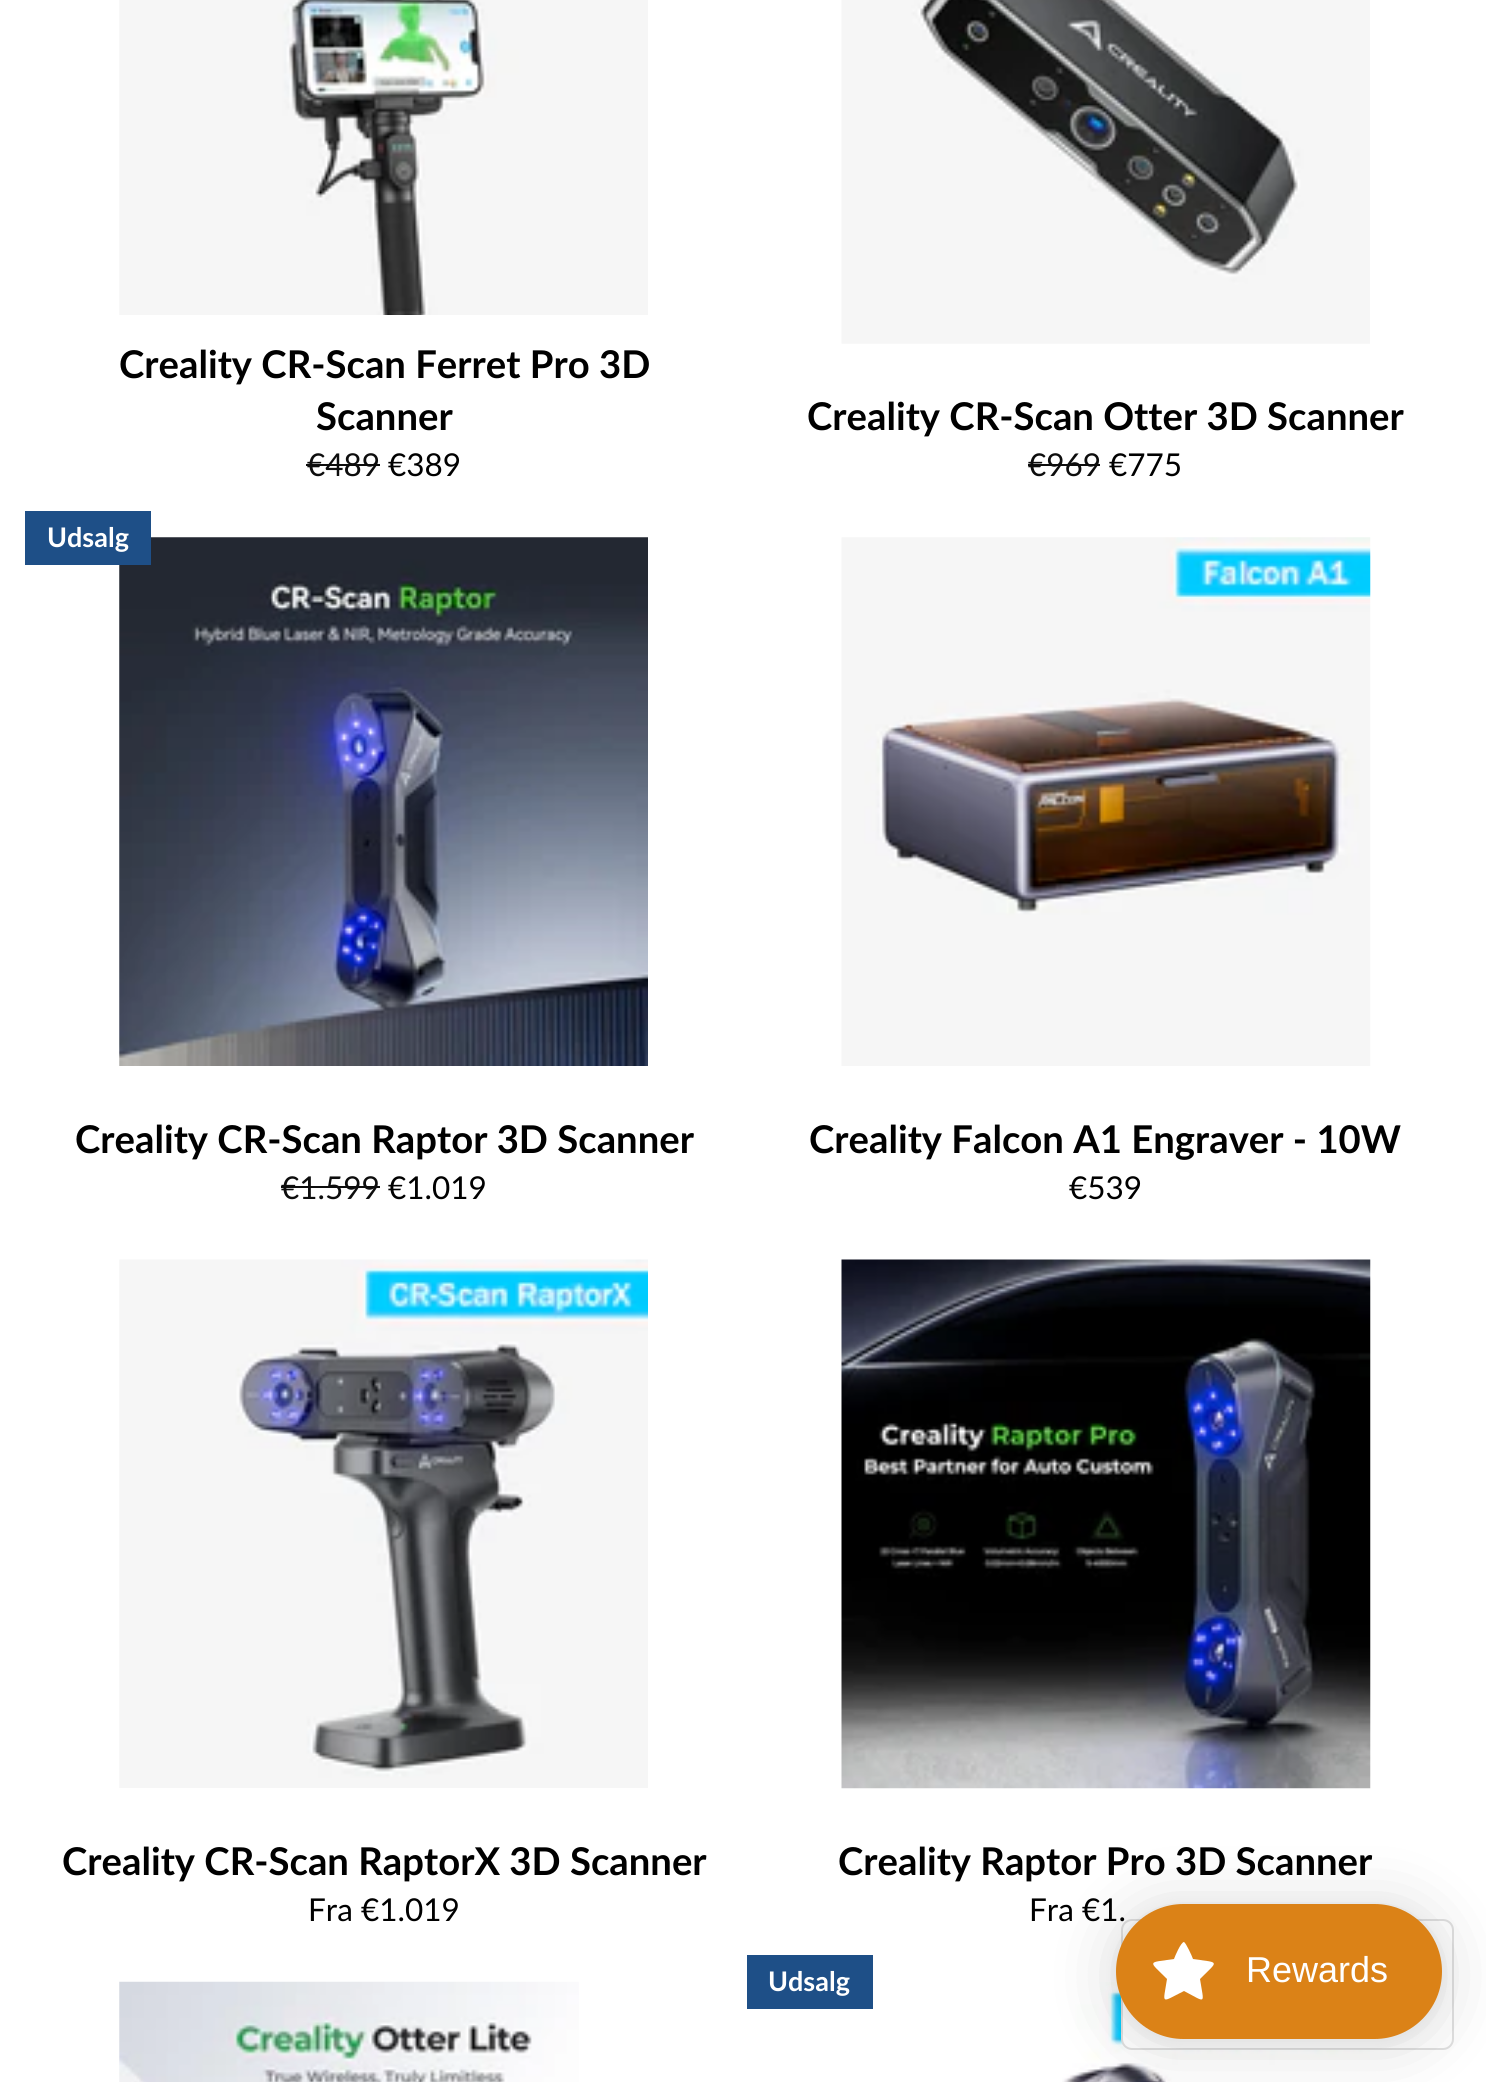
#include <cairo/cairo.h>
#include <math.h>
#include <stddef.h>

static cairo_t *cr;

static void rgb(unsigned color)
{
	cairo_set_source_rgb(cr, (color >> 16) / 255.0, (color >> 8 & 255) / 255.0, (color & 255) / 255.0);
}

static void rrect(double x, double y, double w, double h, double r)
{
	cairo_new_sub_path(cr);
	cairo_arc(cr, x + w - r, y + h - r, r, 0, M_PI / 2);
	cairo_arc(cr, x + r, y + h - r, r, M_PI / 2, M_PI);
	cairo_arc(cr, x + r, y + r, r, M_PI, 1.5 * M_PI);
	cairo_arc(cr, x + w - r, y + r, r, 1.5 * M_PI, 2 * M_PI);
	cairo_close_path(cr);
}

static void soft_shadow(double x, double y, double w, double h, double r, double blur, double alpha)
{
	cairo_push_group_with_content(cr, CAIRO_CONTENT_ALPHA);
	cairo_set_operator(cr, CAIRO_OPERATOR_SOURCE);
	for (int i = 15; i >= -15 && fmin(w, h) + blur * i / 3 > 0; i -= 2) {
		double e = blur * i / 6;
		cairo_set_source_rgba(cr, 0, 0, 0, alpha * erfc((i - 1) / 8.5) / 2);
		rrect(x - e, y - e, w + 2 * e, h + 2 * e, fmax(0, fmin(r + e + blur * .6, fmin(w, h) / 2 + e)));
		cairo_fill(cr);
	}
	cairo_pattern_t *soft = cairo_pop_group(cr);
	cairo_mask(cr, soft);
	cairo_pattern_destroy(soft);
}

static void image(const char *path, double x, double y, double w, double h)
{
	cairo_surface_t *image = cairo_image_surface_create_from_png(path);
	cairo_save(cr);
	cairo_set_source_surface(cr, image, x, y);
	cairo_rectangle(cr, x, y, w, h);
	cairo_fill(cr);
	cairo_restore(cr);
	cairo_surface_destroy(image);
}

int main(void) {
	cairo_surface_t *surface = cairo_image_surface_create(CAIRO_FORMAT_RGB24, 1486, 2082);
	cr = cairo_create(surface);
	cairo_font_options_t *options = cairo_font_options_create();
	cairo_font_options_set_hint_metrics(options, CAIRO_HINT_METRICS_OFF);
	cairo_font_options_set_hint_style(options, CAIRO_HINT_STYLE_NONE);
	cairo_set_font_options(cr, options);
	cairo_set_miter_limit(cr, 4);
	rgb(0xffffff);
	cairo_paint(cr);
	image("img/1.png", 119, 0, 529, 315);
	rgb(0x0d0d0d);
	cairo_rectangle(cr, 306, 464, 74, 2);
	cairo_fill(cr);
	image("img/2.png", 841, 0, 529, 344);
	cairo_rectangle(cr, 1028, 464, 72, 2);
	cairo_fill(cr);
	image("img/3.png", 119, 537, 529, 529);
	rgb(0x1e4f87);
	cairo_rectangle(cr, 25, 511, 126, 54);
	cairo_fill(cr);
	rgb(0x0d0d0d);
	cairo_rectangle(cr, 281, 1186, 99, 2);
	cairo_fill(cr);
	image("img/4.png", 841, 537, 530, 529);
	image("img/5.png", 119, 1259, 529, 529);
	image("img/6.png", 841, 1259, 530, 530);
	image("img/7.png", 119, 1981, 460, 101);
	rgb(0x1e4f87);
	cairo_rectangle(cr, 747, 1955, 126, 54);
	cairo_fill(cr);
	image("img/8.png", 1062, 1982, 309, 100);
	cairo_select_font_face(cr, "Lato", CAIRO_FONT_SLANT_NORMAL, CAIRO_FONT_WEIGHT_BOLD);
	cairo_set_font_size(cr, 38.25);
	rgb(0x000000);
	cairo_move_to(cr, 119, 378);
	cairo_show_text(cr, "Creality CR-Scan Ferret Pro 3D");
	cairo_move_to(cr, 316, 430);
	cairo_show_text(cr, "Scanner");
	cairo_select_font_face(cr, "Lato", CAIRO_FONT_SLANT_NORMAL, CAIRO_FONT_WEIGHT_NORMAL);
	cairo_set_font_size(cr, 31.5);
	rgb(0x0d0d0d);
	cairo_move_to(cr, 307, 476);
	cairo_show_text(cr, "€489");
	rgb(0x000000);
	cairo_move_to(cr, 388, 476);
	cairo_show_text(cr, "€389");
	cairo_select_font_face(cr, "Lato", CAIRO_FONT_SLANT_NORMAL, CAIRO_FONT_WEIGHT_BOLD);
	cairo_set_font_size(cr, 38.25);
	cairo_move_to(cr, 807, 430);
	cairo_show_text(cr, "Creality CR-Scan Otter 3D Scanner");
	cairo_select_font_face(cr, "Lato", CAIRO_FONT_SLANT_NORMAL, CAIRO_FONT_WEIGHT_NORMAL);
	cairo_set_font_size(cr, 31.5);
	rgb(0x0d0d0d);
	cairo_move_to(cr, 1028, 476);
	cairo_show_text(cr, "€969");
	rgb(0x000000);
	cairo_move_to(cr, 1109, 476);
	cairo_show_text(cr, "€775");
	cairo_select_font_face(cr, "Lato", CAIRO_FONT_SLANT_NORMAL, CAIRO_FONT_WEIGHT_BOLD);
	cairo_set_font_size(cr, 27);
	rgb(0xffffff);
	cairo_move_to(cr, 47, 547);
	cairo_show_text(cr, "Udsalg");
	cairo_set_font_size(cr, 38.25);
	rgb(0x000000);
	cairo_move_to(cr, 75, 1153);
	cairo_show_text(cr, "Creality CR-Scan Raptor 3D Scanner");
	cairo_select_font_face(cr, "Lato", CAIRO_FONT_SLANT_NORMAL, CAIRO_FONT_WEIGHT_NORMAL);
	cairo_set_font_size(cr, 31.5);
	rgb(0x0d0d0d);
	cairo_move_to(cr, 281, 1199);
	cairo_show_text(cr, "€1.599");
	rgb(0x000000);
	cairo_move_to(cr, 388, 1199);
	cairo_show_text(cr, "€1.019");
	cairo_select_font_face(cr, "Lato", CAIRO_FONT_SLANT_NORMAL, CAIRO_FONT_WEIGHT_BOLD);
	cairo_set_font_size(cr, 38.25);
	cairo_move_to(cr, 809, 1153);
	cairo_show_text(cr, "Creality Falcon A1 Engraver - 10W");
	cairo_select_font_face(cr, "Lato", CAIRO_FONT_SLANT_NORMAL, CAIRO_FONT_WEIGHT_NORMAL);
	cairo_set_font_size(cr, 31.5);
	cairo_move_to(cr, 1069, 1199);
	cairo_show_text(cr, "€539");
	cairo_select_font_face(cr, "Lato", CAIRO_FONT_SLANT_NORMAL, CAIRO_FONT_WEIGHT_BOLD);
	cairo_set_font_size(cr, 38.25);
	cairo_move_to(cr, 62, 1875);
	cairo_show_text(cr, "Creality CR-Scan RaptorX 3D Scanner");
	cairo_select_font_face(cr, "Lato", CAIRO_FONT_SLANT_NORMAL, CAIRO_FONT_WEIGHT_NORMAL);
	cairo_set_font_size(cr, 31.5);
	cairo_move_to(cr, 308, 1921);
	cairo_show_text(cr, "Fra €1.019");
	cairo_select_font_face(cr, "Lato", CAIRO_FONT_SLANT_NORMAL, CAIRO_FONT_WEIGHT_BOLD);
	cairo_set_font_size(cr, 38.25);
	cairo_move_to(cr, 838, 1875);
	cairo_show_text(cr, "Creality Raptor Pro 3D Scanner");
	cairo_select_font_face(cr, "Lato", CAIRO_FONT_SLANT_NORMAL, CAIRO_FONT_WEIGHT_NORMAL);
	cairo_set_font_size(cr, 31.5);
	cairo_move_to(cr, 1029, 1921);
	cairo_show_text(cr, "Fra €1.");
	cairo_select_font_face(cr, "Lato", CAIRO_FONT_SLANT_NORMAL, CAIRO_FONT_WEIGHT_BOLD);
	cairo_set_font_size(cr, 27);
	rgb(0xffffff);
	cairo_move_to(cr, 768, 1991);
	cairo_show_text(cr, "Udsalg");
	rrect(1122, 1920, 331, 129, 10);
	cairo_fill_preserve(cr);
	rgb(0xe0e0e0);
	cairo_stroke(cr);
	rgb(0x000000);
	soft_shadow(1116, 1908, 326, 135, 67.5, 34, 0.15);
	soft_shadow(1116, 1906, 326, 135, 67.5, 7, 0.05);
	rgb(0xdb8217);
	rrect(1116, 1904, 326, 135, 67.5);
	cairo_fill(cr);
	rgb(0xffffff);
	cairo_new_path(cr);
	cairo_move_to(cr, 1184, 1942);
	cairo_curve_to(cr, 1181, 1942, 1175, 1956, 1174, 1959);
	cairo_curve_to(cr, 1147, 1963, 1148, 1960, 1167, 1979);
	cairo_curve_to(cr, 1163, 2005, 1160, 2003, 1184, 1991);
	cairo_curve_to(cr, 1207, 2003, 1204, 2005, 1200, 1979);
	cairo_curve_to(cr, 1219, 1960, 1220, 1963, 1193, 1959);
	cairo_curve_to(cr, 1192, 1956, 1186, 1943, 1184, 1942);
	cairo_close_path(cr);
	cairo_fill(cr);
	cairo_select_font_face(cr, "Liberation Sans", CAIRO_FONT_SLANT_NORMAL, CAIRO_FONT_WEIGHT_NORMAL);
	cairo_set_font_size(cr, 36);
	cairo_move_to(cr, 1246, 1982);
	cairo_show_text(cr, "Rewards");
	cairo_surface_write_to_png(surface, "page.png");
	cairo_font_options_destroy(options);
	cairo_destroy(cr);
	cairo_surface_destroy(surface);
	return 0;
}
